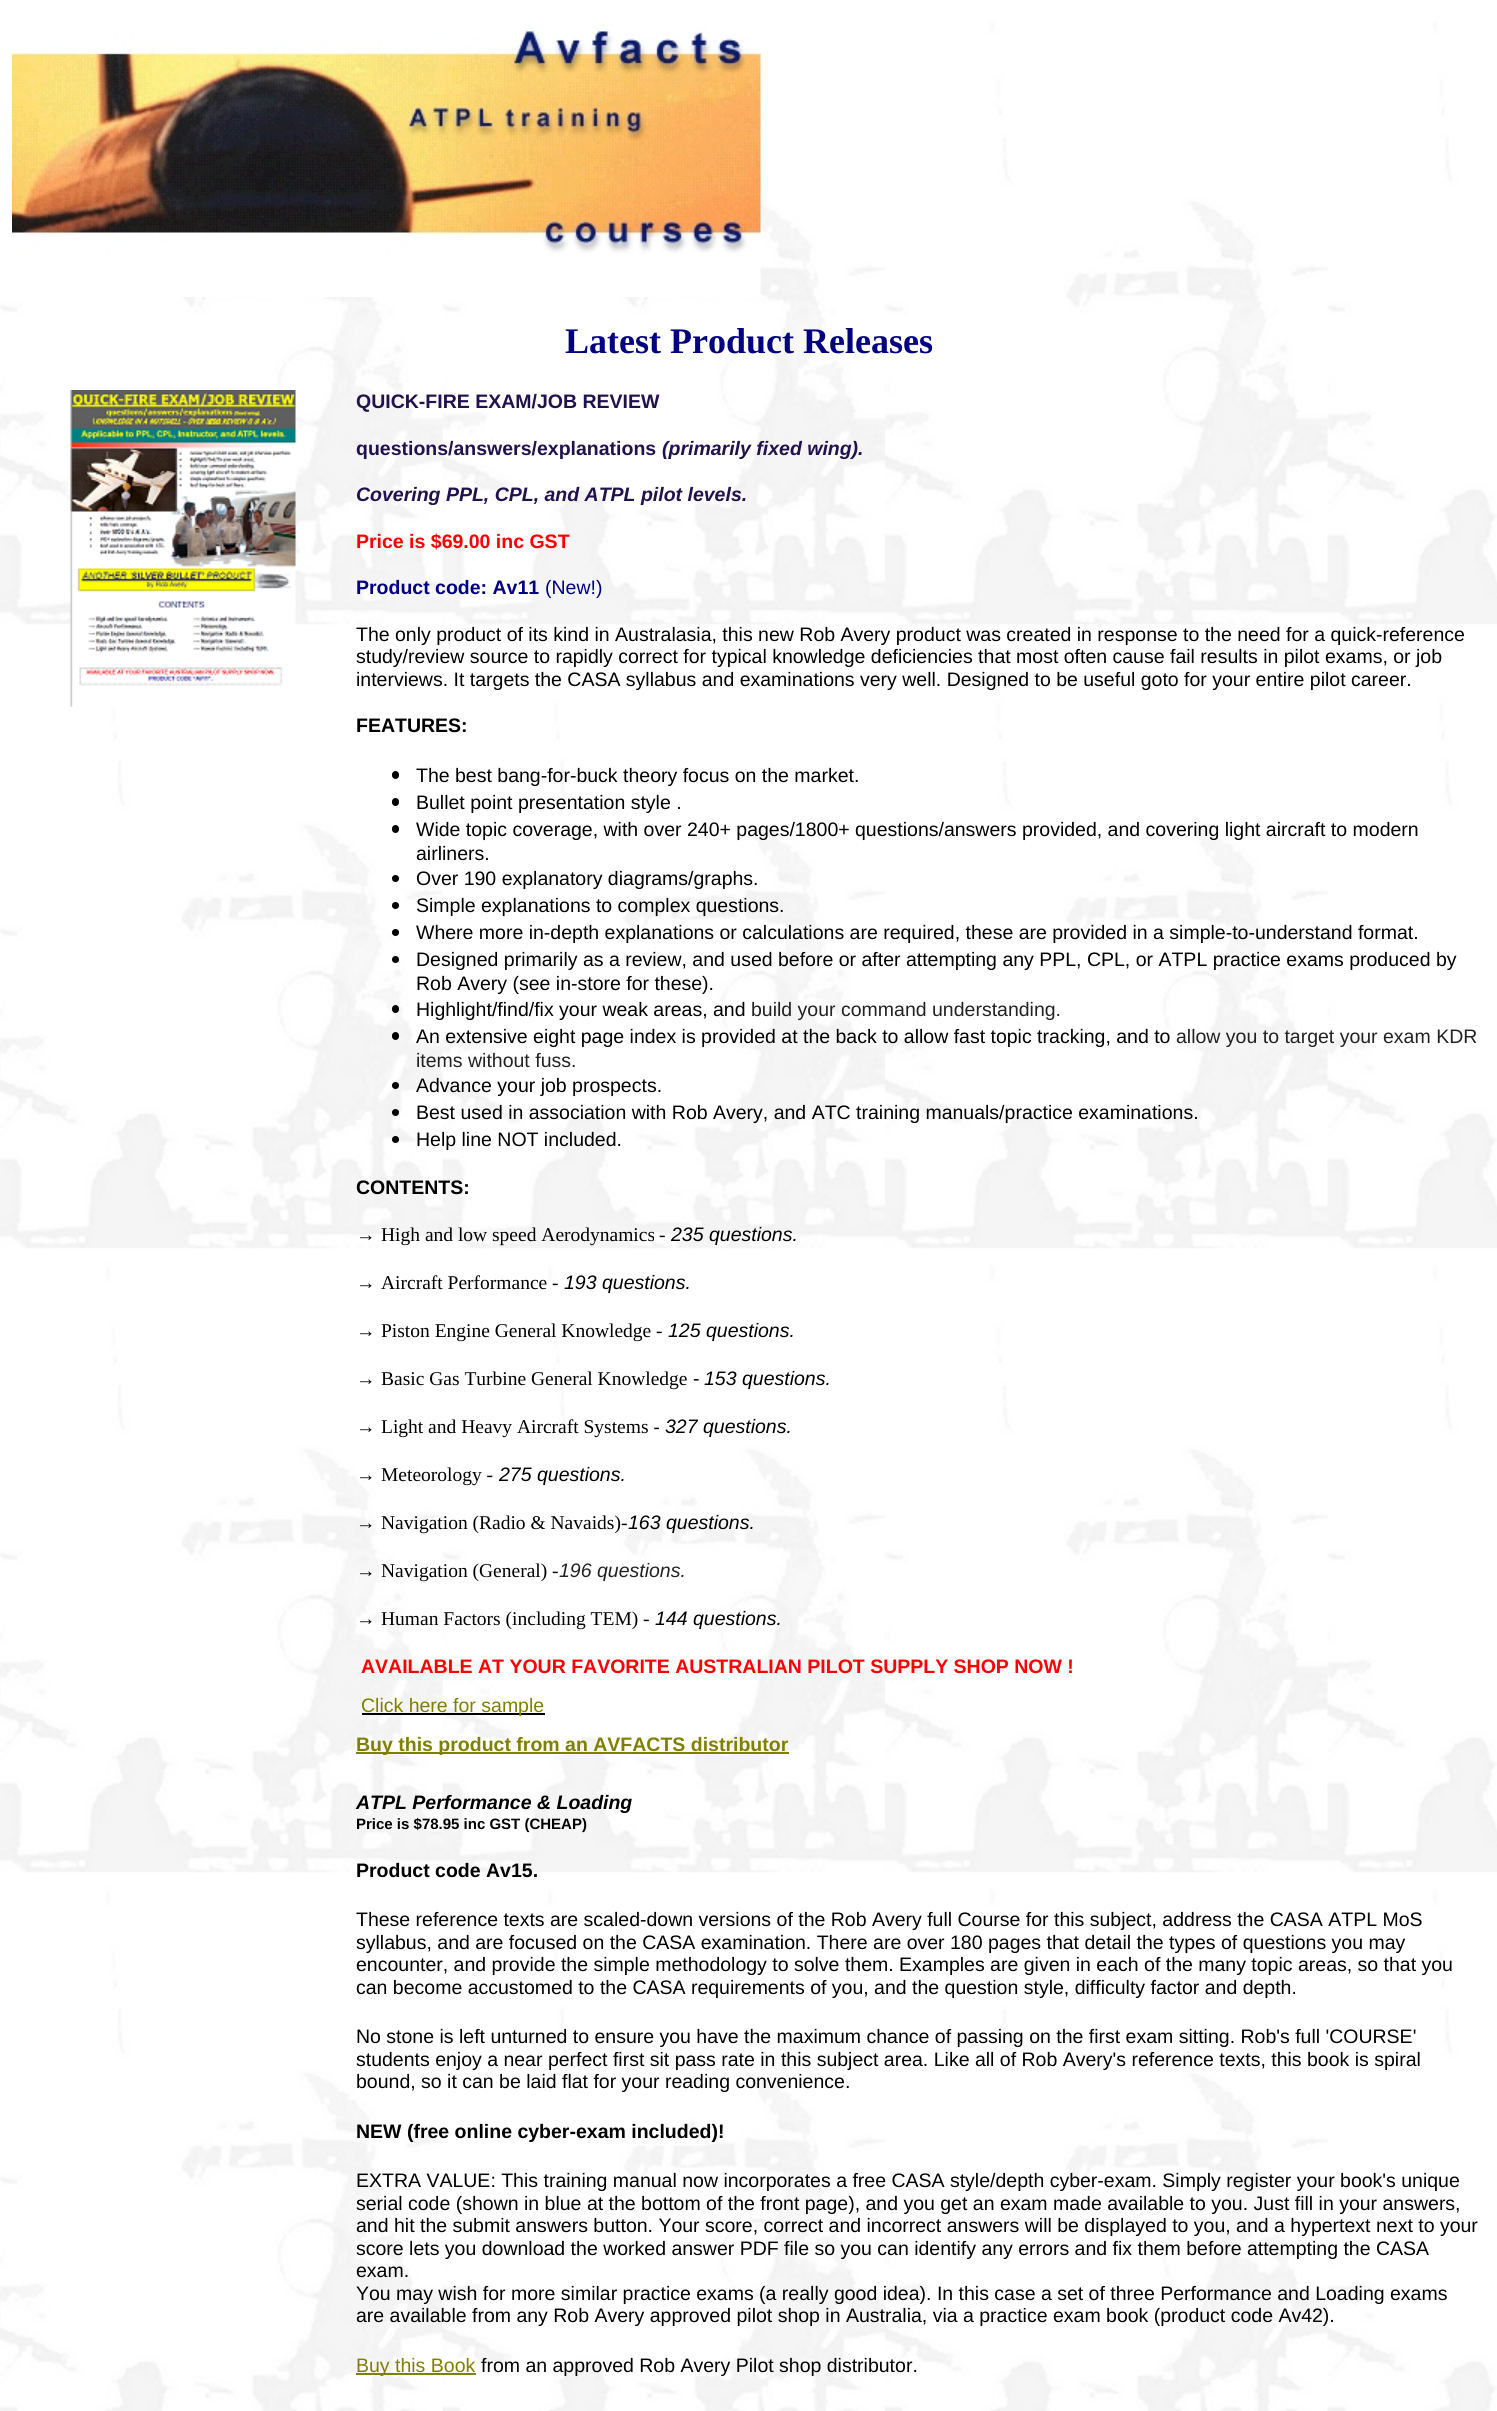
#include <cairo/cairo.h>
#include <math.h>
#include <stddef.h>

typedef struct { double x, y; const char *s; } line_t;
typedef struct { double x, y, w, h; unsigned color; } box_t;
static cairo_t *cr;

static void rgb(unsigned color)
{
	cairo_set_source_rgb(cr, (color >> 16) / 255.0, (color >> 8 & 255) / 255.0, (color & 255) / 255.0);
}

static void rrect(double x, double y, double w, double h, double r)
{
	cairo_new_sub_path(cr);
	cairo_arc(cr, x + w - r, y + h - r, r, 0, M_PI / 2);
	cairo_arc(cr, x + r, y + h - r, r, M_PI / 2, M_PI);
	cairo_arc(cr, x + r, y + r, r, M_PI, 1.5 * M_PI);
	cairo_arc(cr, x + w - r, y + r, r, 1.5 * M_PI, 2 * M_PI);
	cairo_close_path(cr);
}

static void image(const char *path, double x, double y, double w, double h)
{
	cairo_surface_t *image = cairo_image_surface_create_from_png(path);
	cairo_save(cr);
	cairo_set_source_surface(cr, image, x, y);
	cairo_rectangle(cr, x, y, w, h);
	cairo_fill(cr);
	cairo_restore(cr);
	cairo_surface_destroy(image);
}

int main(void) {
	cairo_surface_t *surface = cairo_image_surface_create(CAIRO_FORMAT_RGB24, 1497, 2411);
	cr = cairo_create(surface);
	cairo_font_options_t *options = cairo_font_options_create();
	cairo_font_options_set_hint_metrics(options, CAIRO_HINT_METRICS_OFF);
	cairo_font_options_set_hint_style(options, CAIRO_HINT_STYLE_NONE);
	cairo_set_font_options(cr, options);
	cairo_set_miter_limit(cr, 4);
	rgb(0xffffff);
	cairo_paint(cr);
	image("img/1.png", 0, 21, 1497, 2390);
	image("img/2.png", 12, 21, 749, 276);
	image("img/3.png", 70, 390, 226, 317);
	rgb(0x000000);
	rrect(392, 771, 7, 8, 3.5);
	cairo_fill(cr);
	rrect(392, 798, 7, 8, 3.5);
	cairo_fill(cr);
	rrect(392, 825, 7, 8, 3.5);
	cairo_fill(cr);
	cairo_arc(cr, 395.5, 878.5, 3.5, 0, 2 * M_PI);
	cairo_fill(cr);
	cairo_arc(cr, 395.5, 905.5, 3.5, 0, 2 * M_PI);
	cairo_fill(cr);
	cairo_arc(cr, 395.5, 932.5, 3.5, 0, 2 * M_PI);
	cairo_fill(cr);
	cairo_arc(cr, 395.5, 959.5, 3.5, 0, 2 * M_PI);
	cairo_fill(cr);
	rrect(392, 1005, 7, 8, 3.5);
	cairo_fill(cr);
	rrect(392, 1032, 7, 8, 3.5);
	cairo_fill(cr);
	cairo_arc(cr, 395.5, 1085.5, 3.5, 0, 2 * M_PI);
	cairo_fill(cr);
	cairo_arc(cr, 395.5, 1112.5, 3.5, 0, 2 * M_PI);
	cairo_fill(cr);
	cairo_arc(cr, 395.5, 1139.5, 3.5, 0, 2 * M_PI);
	cairo_fill(cr);
	{
		static const box_t items[] = {
			{362, 1713, 183, 2, 0x000000},
			{356, 1752, 433, 2, 0x808000},
			{356, 2373, 120, 2, 0x808000},
		};
		for (size_t i = 0; i < sizeof items / sizeof *items; i++) {
			rgb(items[i].color);
			cairo_rectangle(cr, items[i].x, items[i].y, items[i].w, items[i].h);
			cairo_fill(cr);
		}
	}
	cairo_select_font_face(cr, "Liberation Serif", CAIRO_FONT_SLANT_NORMAL, CAIRO_FONT_WEIGHT_BOLD);
	cairo_set_font_size(cr, 36);
	rgb(0x000080);
	cairo_move_to(cr, 565, 353);
	cairo_show_text(cr, "Latest Product Releases");
	cairo_select_font_face(cr, "Liberation Sans", CAIRO_FONT_SLANT_NORMAL, CAIRO_FONT_WEIGHT_BOLD);
	cairo_set_font_size(cr, 19.5);
	rgb(0x20124d);
	cairo_move_to(cr, 356, 408);
	cairo_show_text(cr, "QUICK-FIRE EXAM/JOB REVIEW");
	cairo_move_to(cr, 356, 455);
	cairo_show_text(cr, "questions/answers/explanations");
	cairo_select_font_face(cr, "Liberation Sans", CAIRO_FONT_SLANT_ITALIC, CAIRO_FONT_WEIGHT_BOLD);
	cairo_move_to(cr, 662, 455);
	cairo_show_text(cr, "(primarily fixed wing).");
	cairo_move_to(cr, 356, 501);
	cairo_show_text(cr, "Covering PPL, CPL, and ATPL pilot levels.");
	cairo_select_font_face(cr, "Liberation Sans", CAIRO_FONT_SLANT_NORMAL, CAIRO_FONT_WEIGHT_BOLD);
	rgb(0xff0000);
	cairo_move_to(cr, 356, 548);
	cairo_show_text(cr, "Price is $69.00 inc GST");
	rgb(0x000080);
	cairo_move_to(cr, 356, 594);
	cairo_show_text(cr, "Product code: Av11");
	cairo_select_font_face(cr, "Liberation Sans", CAIRO_FONT_SLANT_NORMAL, CAIRO_FONT_WEIGHT_NORMAL);
	cairo_move_to(cr, 545, 594);
	cairo_show_text(cr, "(New!)");
	rgb(0x000000);
	{
		static const line_t items[] = {
			{356, 641, "The only product of its kind in Australasia, this new Rob Avery product was created in response to the need for a quick-reference"},
			{356, 663, "study/review source to rapidly correct for typical knowledge deficiencies that most often cause fail results in pilot exams, or job"},
			{356, 686, "interviews. It targets the CASA syllabus and examinations very well. Designed to be useful goto for your entire pilot career."},
		};
		for (size_t i = 0; i < sizeof items / sizeof *items; i++) {
			cairo_move_to(cr, items[i].x, items[i].y);
			cairo_show_text(cr, items[i].s);
		}
	}
	cairo_select_font_face(cr, "Liberation Sans", CAIRO_FONT_SLANT_NORMAL, CAIRO_FONT_WEIGHT_BOLD);
	cairo_move_to(cr, 356, 732);
	cairo_show_text(cr, "FEATURES:");
	cairo_select_font_face(cr, "Liberation Sans", CAIRO_FONT_SLANT_NORMAL, CAIRO_FONT_WEIGHT_NORMAL);
	{
		static const line_t items[] = {
			{416, 782, "The best bang-for-buck theory focus on the market."},
			{416, 809, "Bullet point presentation style ."},
			{416, 836, "Wide topic coverage, with over 240+ pages/1800+ questions/answers provided, and covering light aircraft to modern"},
			{416, 860, "airliners."},
			{416, 885, "Over 190 explanatory diagrams/graphs."},
			{416, 912, "Simple explanations to complex questions."},
			{416, 939, "Where more in-depth explanations or calculations are required, these are provided in a simple-to-understand format."},
			{416, 966, "Designed primarily as a review, and used before or after attempting any PPL, CPL, or ATPL practice exams produced by"},
			{416, 990, "Rob Avery (see in-store for these)."},
			{416, 1016, "Highlight/find/fix your weak areas, and"},
		};
		for (size_t i = 0; i < sizeof items / sizeof *items; i++) {
			cairo_move_to(cr, items[i].x, items[i].y);
			cairo_show_text(cr, items[i].s);
		}
	}
	rgb(0x222222);
	cairo_move_to(cr, 751, 1016);
	cairo_show_text(cr, "build your command understanding.");
	rgb(0x000000);
	cairo_move_to(cr, 416, 1043);
	cairo_show_text(cr, "An extensive eight page index is provided at the back to allow fast topic tracking, and to");
	rgb(0x222222);
	cairo_move_to(cr, 1176, 1043);
	cairo_show_text(cr, "allow you to target your exam KDR");
	cairo_move_to(cr, 416, 1067);
	cairo_show_text(cr, "items without fuss.");
	rgb(0x000000);
	{
		static const line_t items[] = {
			{416, 1092, "Advance your job prospects."},
			{416, 1119, "Best used in association with Rob Avery, and ATC training manuals/practice examinations."},
			{416, 1146, "Help line NOT included."},
		};
		for (size_t i = 0; i < sizeof items / sizeof *items; i++) {
			cairo_move_to(cr, items[i].x, items[i].y);
			cairo_show_text(cr, items[i].s);
		}
	}
	cairo_select_font_face(cr, "Liberation Sans", CAIRO_FONT_SLANT_NORMAL, CAIRO_FONT_WEIGHT_BOLD);
	cairo_move_to(cr, 356, 1194);
	cairo_show_text(cr, "CONTENTS:");
	cairo_select_font_face(cr, "Liberation Sans", CAIRO_FONT_SLANT_NORMAL, CAIRO_FONT_WEIGHT_NORMAL);
	cairo_move_to(cr, 356, 1241);
	cairo_show_text(cr, "→");
	cairo_select_font_face(cr, "Liberation Serif", CAIRO_FONT_SLANT_NORMAL, CAIRO_FONT_WEIGHT_NORMAL);
	cairo_move_to(cr, 381, 1241);
	cairo_show_text(cr, "High and low speed Aerodynamics");
	cairo_select_font_face(cr, "Liberation Serif", CAIRO_FONT_SLANT_ITALIC, CAIRO_FONT_WEIGHT_NORMAL);
	cairo_move_to(cr, 659, 1241);
	cairo_show_text(cr, "-");
	cairo_select_font_face(cr, "Liberation Sans", CAIRO_FONT_SLANT_ITALIC, CAIRO_FONT_WEIGHT_NORMAL);
	cairo_move_to(cr, 671, 1241);
	cairo_show_text(cr, "235 questions.");
	cairo_select_font_face(cr, "Liberation Sans", CAIRO_FONT_SLANT_NORMAL, CAIRO_FONT_WEIGHT_NORMAL);
	cairo_move_to(cr, 356, 1289);
	cairo_show_text(cr, "→");
	cairo_select_font_face(cr, "Liberation Serif", CAIRO_FONT_SLANT_NORMAL, CAIRO_FONT_WEIGHT_NORMAL);
	cairo_move_to(cr, 381, 1289);
	cairo_show_text(cr, "Aircraft Performance -");
	cairo_select_font_face(cr, "Liberation Sans", CAIRO_FONT_SLANT_ITALIC, CAIRO_FONT_WEIGHT_NORMAL);
	cairo_move_to(cr, 564, 1289);
	cairo_show_text(cr, "193 questions.");
	cairo_select_font_face(cr, "Liberation Sans", CAIRO_FONT_SLANT_NORMAL, CAIRO_FONT_WEIGHT_NORMAL);
	cairo_move_to(cr, 356, 1337);
	cairo_show_text(cr, "→");
	cairo_select_font_face(cr, "Liberation Serif", CAIRO_FONT_SLANT_NORMAL, CAIRO_FONT_WEIGHT_NORMAL);
	cairo_move_to(cr, 381, 1337);
	cairo_show_text(cr, "Piston Engine General Knowledge -");
	cairo_select_font_face(cr, "Liberation Sans", CAIRO_FONT_SLANT_ITALIC, CAIRO_FONT_WEIGHT_NORMAL);
	cairo_move_to(cr, 668, 1337);
	cairo_show_text(cr, "125 questions.");
	cairo_select_font_face(cr, "Liberation Sans", CAIRO_FONT_SLANT_NORMAL, CAIRO_FONT_WEIGHT_NORMAL);
	cairo_move_to(cr, 356, 1385);
	cairo_show_text(cr, "→");
	cairo_select_font_face(cr, "Liberation Serif", CAIRO_FONT_SLANT_NORMAL, CAIRO_FONT_WEIGHT_NORMAL);
	cairo_move_to(cr, 381, 1385);
	cairo_show_text(cr, "Basic Gas Turbine General Knowledge");
	cairo_select_font_face(cr, "Liberation Sans", CAIRO_FONT_SLANT_NORMAL, CAIRO_FONT_WEIGHT_NORMAL);
	cairo_move_to(cr, 693, 1385);
	cairo_show_text(cr, "-");
	cairo_select_font_face(cr, "Liberation Sans", CAIRO_FONT_SLANT_ITALIC, CAIRO_FONT_WEIGHT_NORMAL);
	cairo_move_to(cr, 704, 1385);
	cairo_show_text(cr, "153 questions.");
	cairo_select_font_face(cr, "Liberation Sans", CAIRO_FONT_SLANT_NORMAL, CAIRO_FONT_WEIGHT_NORMAL);
	cairo_move_to(cr, 356, 1433);
	cairo_show_text(cr, "→");
	cairo_select_font_face(cr, "Liberation Serif", CAIRO_FONT_SLANT_NORMAL, CAIRO_FONT_WEIGHT_NORMAL);
	cairo_move_to(cr, 381, 1433);
	cairo_show_text(cr, "Light and Heavy Aircraft Systems -");
	cairo_select_font_face(cr, "Liberation Sans", CAIRO_FONT_SLANT_ITALIC, CAIRO_FONT_WEIGHT_NORMAL);
	cairo_move_to(cr, 665, 1433);
	cairo_show_text(cr, "327 questions.");
	cairo_select_font_face(cr, "Liberation Sans", CAIRO_FONT_SLANT_NORMAL, CAIRO_FONT_WEIGHT_NORMAL);
	cairo_move_to(cr, 356, 1481);
	cairo_show_text(cr, "→");
	cairo_select_font_face(cr, "Liberation Serif", CAIRO_FONT_SLANT_NORMAL, CAIRO_FONT_WEIGHT_NORMAL);
	cairo_move_to(cr, 381, 1481);
	cairo_show_text(cr, "Meteorology -");
	cairo_select_font_face(cr, "Liberation Sans", CAIRO_FONT_SLANT_ITALIC, CAIRO_FONT_WEIGHT_NORMAL);
	cairo_move_to(cr, 499, 1481);
	cairo_show_text(cr, "275 questions.");
	cairo_select_font_face(cr, "Liberation Sans", CAIRO_FONT_SLANT_NORMAL, CAIRO_FONT_WEIGHT_NORMAL);
	cairo_move_to(cr, 356, 1529);
	cairo_show_text(cr, "→");
	cairo_select_font_face(cr, "Liberation Serif", CAIRO_FONT_SLANT_NORMAL, CAIRO_FONT_WEIGHT_NORMAL);
	cairo_move_to(cr, 381, 1529);
	cairo_show_text(cr, "Navigation (Radio & Navaids)-");
	cairo_select_font_face(cr, "Liberation Sans", CAIRO_FONT_SLANT_ITALIC, CAIRO_FONT_WEIGHT_NORMAL);
	cairo_move_to(cr, 628, 1529);
	cairo_show_text(cr, "163 questions.");
	cairo_select_font_face(cr, "Liberation Sans", CAIRO_FONT_SLANT_NORMAL, CAIRO_FONT_WEIGHT_NORMAL);
	cairo_move_to(cr, 356, 1577);
	cairo_show_text(cr, "→");
	cairo_select_font_face(cr, "Liberation Serif", CAIRO_FONT_SLANT_NORMAL, CAIRO_FONT_WEIGHT_NORMAL);
	cairo_move_to(cr, 381, 1577);
	cairo_show_text(cr, "Navigation (General) -");
	cairo_select_font_face(cr, "Liberation Sans", CAIRO_FONT_SLANT_ITALIC, CAIRO_FONT_WEIGHT_NORMAL);
	rgb(0x222222);
	cairo_move_to(cr, 559, 1577);
	cairo_show_text(cr, "196 questions.");
	cairo_select_font_face(cr, "Liberation Sans", CAIRO_FONT_SLANT_NORMAL, CAIRO_FONT_WEIGHT_NORMAL);
	rgb(0x000000);
	cairo_move_to(cr, 356, 1625);
	cairo_show_text(cr, "→");
	cairo_select_font_face(cr, "Liberation Serif", CAIRO_FONT_SLANT_NORMAL, CAIRO_FONT_WEIGHT_NORMAL);
	cairo_move_to(cr, 381, 1625);
	cairo_show_text(cr, "Human Factors (including TEM) -");
	cairo_select_font_face(cr, "Liberation Sans", CAIRO_FONT_SLANT_ITALIC, CAIRO_FONT_WEIGHT_NORMAL);
	cairo_move_to(cr, 655, 1625);
	cairo_show_text(cr, "144 questions.");
	cairo_select_font_face(cr, "Liberation Sans", CAIRO_FONT_SLANT_NORMAL, CAIRO_FONT_WEIGHT_BOLD);
	rgb(0xff0000);
	cairo_move_to(cr, 361, 1673);
	cairo_show_text(cr, "AVAILABLE AT YOUR FAVORITE AUSTRALIAN PILOT SUPPLY SHOP NOW !");
	cairo_select_font_face(cr, "Liberation Sans", CAIRO_FONT_SLANT_NORMAL, CAIRO_FONT_WEIGHT_NORMAL);
	rgb(0x808000);
	cairo_move_to(cr, 361, 1712);
	cairo_show_text(cr, "Click here for sample");
	cairo_select_font_face(cr, "Liberation Sans", CAIRO_FONT_SLANT_NORMAL, CAIRO_FONT_WEIGHT_BOLD);
	cairo_move_to(cr, 356, 1751);
	cairo_show_text(cr, "Buy this product from an AVFACTS distributor");
	cairo_select_font_face(cr, "Liberation Sans", CAIRO_FONT_SLANT_ITALIC, CAIRO_FONT_WEIGHT_BOLD);
	rgb(0x000000);
	cairo_move_to(cr, 356, 1809);
	cairo_show_text(cr, "ATPL Performance & Loading");
	cairo_select_font_face(cr, "Liberation Sans", CAIRO_FONT_SLANT_NORMAL, CAIRO_FONT_WEIGHT_BOLD);
	cairo_set_font_size(cr, 15);
	cairo_move_to(cr, 356, 1829);
	cairo_show_text(cr, "Price is $78.95 inc GST (CHEAP)");
	cairo_set_font_size(cr, 19.5);
	cairo_move_to(cr, 356, 1877);
	cairo_show_text(cr, "Product code Av15.");
	cairo_select_font_face(cr, "Liberation Sans", CAIRO_FONT_SLANT_NORMAL, CAIRO_FONT_WEIGHT_NORMAL);
	{
		static const line_t items[] = {
			{356, 1926, "These reference texts are scaled-down versions of the Rob Avery full Course for this subject, address the CASA ATPL MoS"},
			{356, 1949, "syllabus, and are focused on the CASA examination. There are over 180 pages that detail the types of questions you may"},
			{356, 1971, "encounter, and provide the simple methodology to solve them. Examples are given in each of the many topic areas, so that you"},
			{356, 1994, "can become accustomed to the CASA requirements of you, and the question style, difficulty factor and depth."},
			{356, 2043, "No stone is left unturned to ensure you have the maximum chance of passing on the first exam sitting. Rob's full 'COURSE'"},
			{356, 2066, "students enjoy a near perfect first sit pass rate in this subject area. Like all of Rob Avery's reference texts, this book is spiral"},
			{356, 2088, "bound, so it can be laid flat for your reading convenience."},
		};
		for (size_t i = 0; i < sizeof items / sizeof *items; i++) {
			cairo_move_to(cr, items[i].x, items[i].y);
			cairo_show_text(cr, items[i].s);
		}
	}
	cairo_select_font_face(cr, "Liberation Sans", CAIRO_FONT_SLANT_NORMAL, CAIRO_FONT_WEIGHT_BOLD);
	cairo_move_to(cr, 356, 2138);
	cairo_show_text(cr, "NEW (free online cyber-exam included)!");
	cairo_select_font_face(cr, "Liberation Sans", CAIRO_FONT_SLANT_NORMAL, CAIRO_FONT_WEIGHT_NORMAL);
	{
		static const line_t items[] = {
			{356, 2187, "EXTRA VALUE: This training manual now incorporates a free CASA style/depth cyber-exam. Simply register your book's unique"},
			{356, 2210, "serial code (shown in blue at the bottom of the front page), and you get an exam made available to you. Just fill in your answers,"},
			{356, 2232, "and hit the submit answers button. Your score, correct and incorrect answers will be displayed to you, and a hypertext next to your"},
			{356, 2255, "score lets you download the worked answer PDF file so you can identify any errors and fix them before attempting the CASA"},
			{356, 2277, "exam."},
			{356, 2300, "You may wish for more similar practice exams (a really good idea). In this case a set of three Performance and Loading exams"},
			{356, 2322, "are available from any Rob Avery approved pilot shop in Australia, via a practice exam book (product code Av42)."},
		};
		for (size_t i = 0; i < sizeof items / sizeof *items; i++) {
			cairo_move_to(cr, items[i].x, items[i].y);
			cairo_show_text(cr, items[i].s);
		}
	}
	rgb(0x808000);
	cairo_move_to(cr, 356, 2372);
	cairo_show_text(cr, "Buy this Book");
	rgb(0x000000);
	cairo_move_to(cr, 481, 2372);
	cairo_show_text(cr, "from an approved Rob Avery Pilot shop distributor.");
	cairo_surface_write_to_png(surface, "page.png");
	cairo_font_options_destroy(options);
	cairo_destroy(cr);
	cairo_surface_destroy(surface);
	return 0;
}
